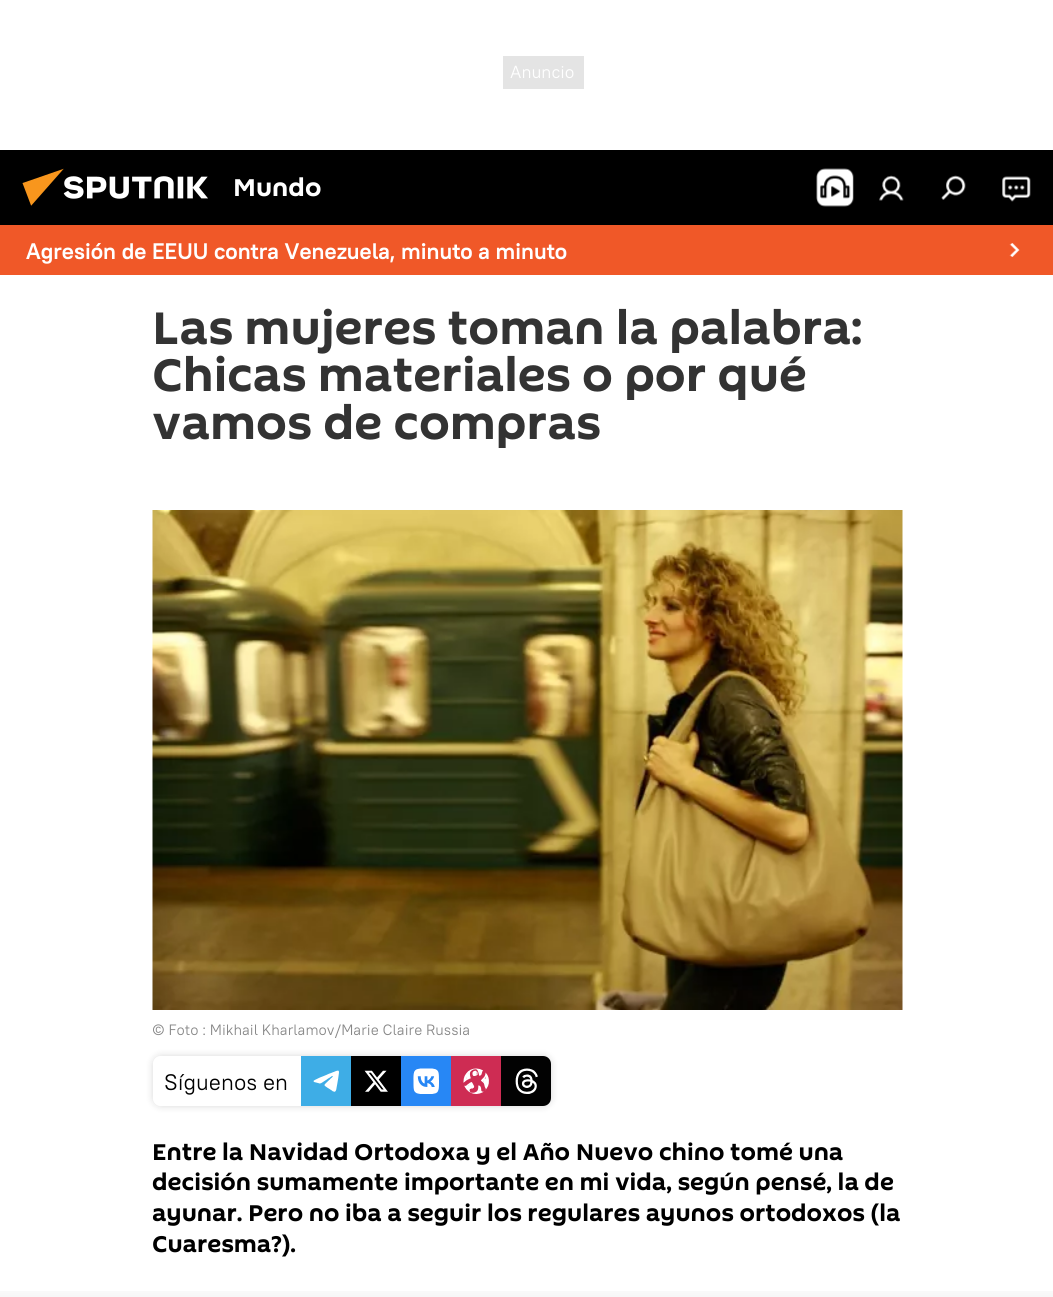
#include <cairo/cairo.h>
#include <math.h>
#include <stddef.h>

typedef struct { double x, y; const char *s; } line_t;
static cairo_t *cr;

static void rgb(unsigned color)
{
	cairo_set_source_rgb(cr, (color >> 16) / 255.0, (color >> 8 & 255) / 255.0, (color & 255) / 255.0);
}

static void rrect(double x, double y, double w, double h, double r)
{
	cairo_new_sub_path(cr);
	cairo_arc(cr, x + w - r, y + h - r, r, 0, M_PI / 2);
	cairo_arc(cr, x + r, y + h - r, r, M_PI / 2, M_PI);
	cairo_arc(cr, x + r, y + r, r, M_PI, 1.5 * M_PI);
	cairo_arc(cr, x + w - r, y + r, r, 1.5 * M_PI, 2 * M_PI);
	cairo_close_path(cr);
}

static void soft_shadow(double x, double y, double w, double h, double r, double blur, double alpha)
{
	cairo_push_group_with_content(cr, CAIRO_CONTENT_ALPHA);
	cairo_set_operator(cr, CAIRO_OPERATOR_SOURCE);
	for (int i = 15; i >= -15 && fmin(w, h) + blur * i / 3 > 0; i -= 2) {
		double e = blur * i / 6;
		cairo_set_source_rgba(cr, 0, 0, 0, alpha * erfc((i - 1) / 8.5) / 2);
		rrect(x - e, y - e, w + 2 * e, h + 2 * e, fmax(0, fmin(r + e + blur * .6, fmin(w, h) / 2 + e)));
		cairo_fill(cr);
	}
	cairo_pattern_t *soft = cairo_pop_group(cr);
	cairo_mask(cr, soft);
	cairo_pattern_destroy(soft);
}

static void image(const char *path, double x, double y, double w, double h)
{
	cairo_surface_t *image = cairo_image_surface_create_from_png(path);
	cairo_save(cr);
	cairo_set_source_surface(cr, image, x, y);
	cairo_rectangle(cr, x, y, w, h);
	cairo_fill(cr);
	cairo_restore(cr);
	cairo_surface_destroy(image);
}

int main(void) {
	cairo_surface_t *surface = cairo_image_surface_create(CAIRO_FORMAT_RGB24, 1053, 1297);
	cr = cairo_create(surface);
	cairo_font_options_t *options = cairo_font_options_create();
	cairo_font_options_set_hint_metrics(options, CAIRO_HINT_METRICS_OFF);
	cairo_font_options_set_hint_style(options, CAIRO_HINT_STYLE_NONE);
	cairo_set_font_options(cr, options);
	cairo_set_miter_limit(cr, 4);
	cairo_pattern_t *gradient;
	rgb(0xffffff);
	cairo_paint(cr);
	rgb(0xe4e4e4);
	cairo_rectangle(cr, 503, 56, 81, 33);
	cairo_fill(cr);
	rgb(0x000000);
	cairo_rectangle(cr, 0, 150, 1053, 75);
	cairo_fill(cr);
	image("img/1.png", 22, 168, 186, 38);
	image("img/2.png", 816, 168, 38, 39);
	image("img/3.png", 879, 175, 25, 26);
	image("img/4.png", 941, 175, 25, 25);
	image("img/5.png", 1002, 176, 29, 26);
	rgb(0xf05828);
	cairo_rectangle(cr, 0, 225, 1053, 50);
	cairo_fill(cr);
	image("img/6.png", 1009, 243, 11, 14);
	image("img/7.png", 152, 510, 751, 500);
	cairo_save(cr);
	cairo_set_fill_rule(cr, CAIRO_FILL_RULE_EVEN_ODD);
	cairo_new_path(cr);
	cairo_move_to(cr, 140, 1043);
	cairo_line_to(cr, 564, 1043);
	cairo_line_to(cr, 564, 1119);
	cairo_line_to(cr, 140, 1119);
	cairo_close_path(cr);
	cairo_move_to(cr, 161, 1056);
	cairo_line_to(cr, 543, 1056);
	cairo_curve_to(cr, 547.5, 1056, 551, 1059.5, 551, 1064);
	cairo_line_to(cr, 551, 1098);
	cairo_curve_to(cr, 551, 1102.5, 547.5, 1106, 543, 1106);
	cairo_line_to(cr, 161, 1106);
	cairo_curve_to(cr, 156.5, 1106, 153, 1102.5, 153, 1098);
	cairo_line_to(cr, 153, 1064);
	cairo_curve_to(cr, 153, 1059.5, 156.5, 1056, 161, 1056);
	cairo_close_path(cr);
	cairo_clip(cr);
	rgb(0x000000);
	soft_shadow(153, 1056, 398, 50, 8, 4, 0.15);
	cairo_restore(cr);
	rgb(0x3eade6);
	cairo_rectangle(cr, 301, 1056, 50, 50);
	cairo_fill(cr);
	image("img/8.png", 313, 1070, 26, 22);
	rgb(0x000000);
	cairo_rectangle(cr, 351, 1056, 50, 50);
	cairo_fill(cr);
	image("img/9.png", 364, 1070, 24, 22);
	rgb(0x2787f5);
	cairo_rectangle(cr, 401, 1056, 50, 50);
	cairo_fill(cr);
	image("img/10.png", 413, 1068, 26, 26);
	rgb(0xce2c53);
	cairo_rectangle(cr, 451, 1056, 50, 50);
	cairo_fill(cr);
	image("img/11.png", 463, 1068, 26, 26);
	rgb(0x020202);
	cairo_new_path(cr);
	cairo_move_to(cr, 501, 1056);
	cairo_line_to(cr, 543, 1056);
	cairo_curve_to(cr, 547.5, 1056, 551, 1059.5, 551, 1064);
	cairo_line_to(cr, 551, 1098);
	cairo_curve_to(cr, 551, 1102.5, 547.5, 1106, 543, 1106);
	cairo_line_to(cr, 501, 1106);
	cairo_close_path(cr);
	cairo_fill(cr);
	image("img/12.png", 515, 1068, 23, 26);
	gradient = cairo_pattern_create_linear(527, 1279, 527, 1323);
	cairo_pattern_add_color_stop_rgba(gradient, 0, 0, 0, 0, 0);
	cairo_pattern_add_color_stop_rgba(gradient, 0.61, 0, 0, 0, 0.05);
	cairo_pattern_add_color_stop_rgba(gradient, 0.86, 0, 0, 0, 0.09);
	cairo_pattern_add_color_stop_rgba(gradient, 1, 0, 0, 0, 0.18);
	cairo_set_source(cr, gradient);
	cairo_pattern_destroy(gradient);
	cairo_rectangle(cr, 0, 1291, 1053, 6);
	cairo_fill(cr);
	cairo_select_font_face(cr, "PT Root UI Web", CAIRO_FONT_SLANT_NORMAL, CAIRO_FONT_WEIGHT_NORMAL);
	cairo_set_font_size(cr, 17.5);
	rgb(0xffffff);
	cairo_move_to(cr, 510, 78);
	cairo_show_text(cr, "Anuncio");
	cairo_select_font_face(cr, "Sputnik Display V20", CAIRO_FONT_SLANT_NORMAL, CAIRO_FONT_WEIGHT_BOLD);
	cairo_set_font_size(cr, 24);
	cairo_move_to(cr, 233, 196);
	cairo_show_text(cr, "Mundo");
	cairo_select_font_face(cr, "PT Root UI Web", CAIRO_FONT_SLANT_NORMAL, CAIRO_FONT_WEIGHT_BOLD);
	cairo_set_font_size(cr, 22.5);
	cairo_move_to(cr, 26, 259);
	cairo_show_text(cr, "Agresión de EEUU contra Venezuela, minuto a minuto");
	cairo_select_font_face(cr, "Sputnik Display V20", CAIRO_FONT_SLANT_NORMAL, CAIRO_FONT_WEIGHT_BOLD);
	cairo_set_font_size(cr, 45);
	rgb(0x333333);
	{
		static const line_t items[] = {
			{152, 344, "Las mujeres toman la palabra:"},
			{152, 391, "Chicas materiales o por qué"},
			{152, 439, "vamos de compras"},
		};
		for (size_t i = 0; i < sizeof items / sizeof *items; i++) {
			cairo_move_to(cr, items[i].x, items[i].y);
			cairo_show_text(cr, items[i].s);
		}
	}
	cairo_select_font_face(cr, "PT Root UI Web", CAIRO_FONT_SLANT_NORMAL, CAIRO_FONT_WEIGHT_NORMAL);
	cairo_set_font_size(cr, 15);
	rgb(0x878787);
	cairo_move_to(cr, 152, 1035);
	cairo_show_text(cr, "© Foto : Mikhail Kharlamov/Marie Claire Russia");
	cairo_set_font_size(cr, 22.5);
	rgb(0x000000);
	cairo_move_to(cr, 164, 1090);
	cairo_show_text(cr, "Síguenos en");
	cairo_select_font_face(cr, "Sputnik Display V20", CAIRO_FONT_SLANT_NORMAL, CAIRO_FONT_WEIGHT_BOLD);
	{
		static const line_t items[] = {
			{152, 1160, "Entre la Navidad Ortodoxa y el Año Nuevo chino tomé una"},
			{152, 1190, "decisión sumamente importante en mi vida, según pensé, la de"},
			{152, 1221, "ayunar. Pero no iba a seguir los regulares ayunos ortodoxos (la"},
			{152, 1252, "Cuaresma?)."},
		};
		for (size_t i = 0; i < sizeof items / sizeof *items; i++) {
			cairo_move_to(cr, items[i].x, items[i].y);
			cairo_show_text(cr, items[i].s);
		}
	}
	cairo_surface_write_to_png(surface, "page.png");
	cairo_font_options_destroy(options);
	cairo_destroy(cr);
	cairo_surface_destroy(surface);
	return 0;
}
